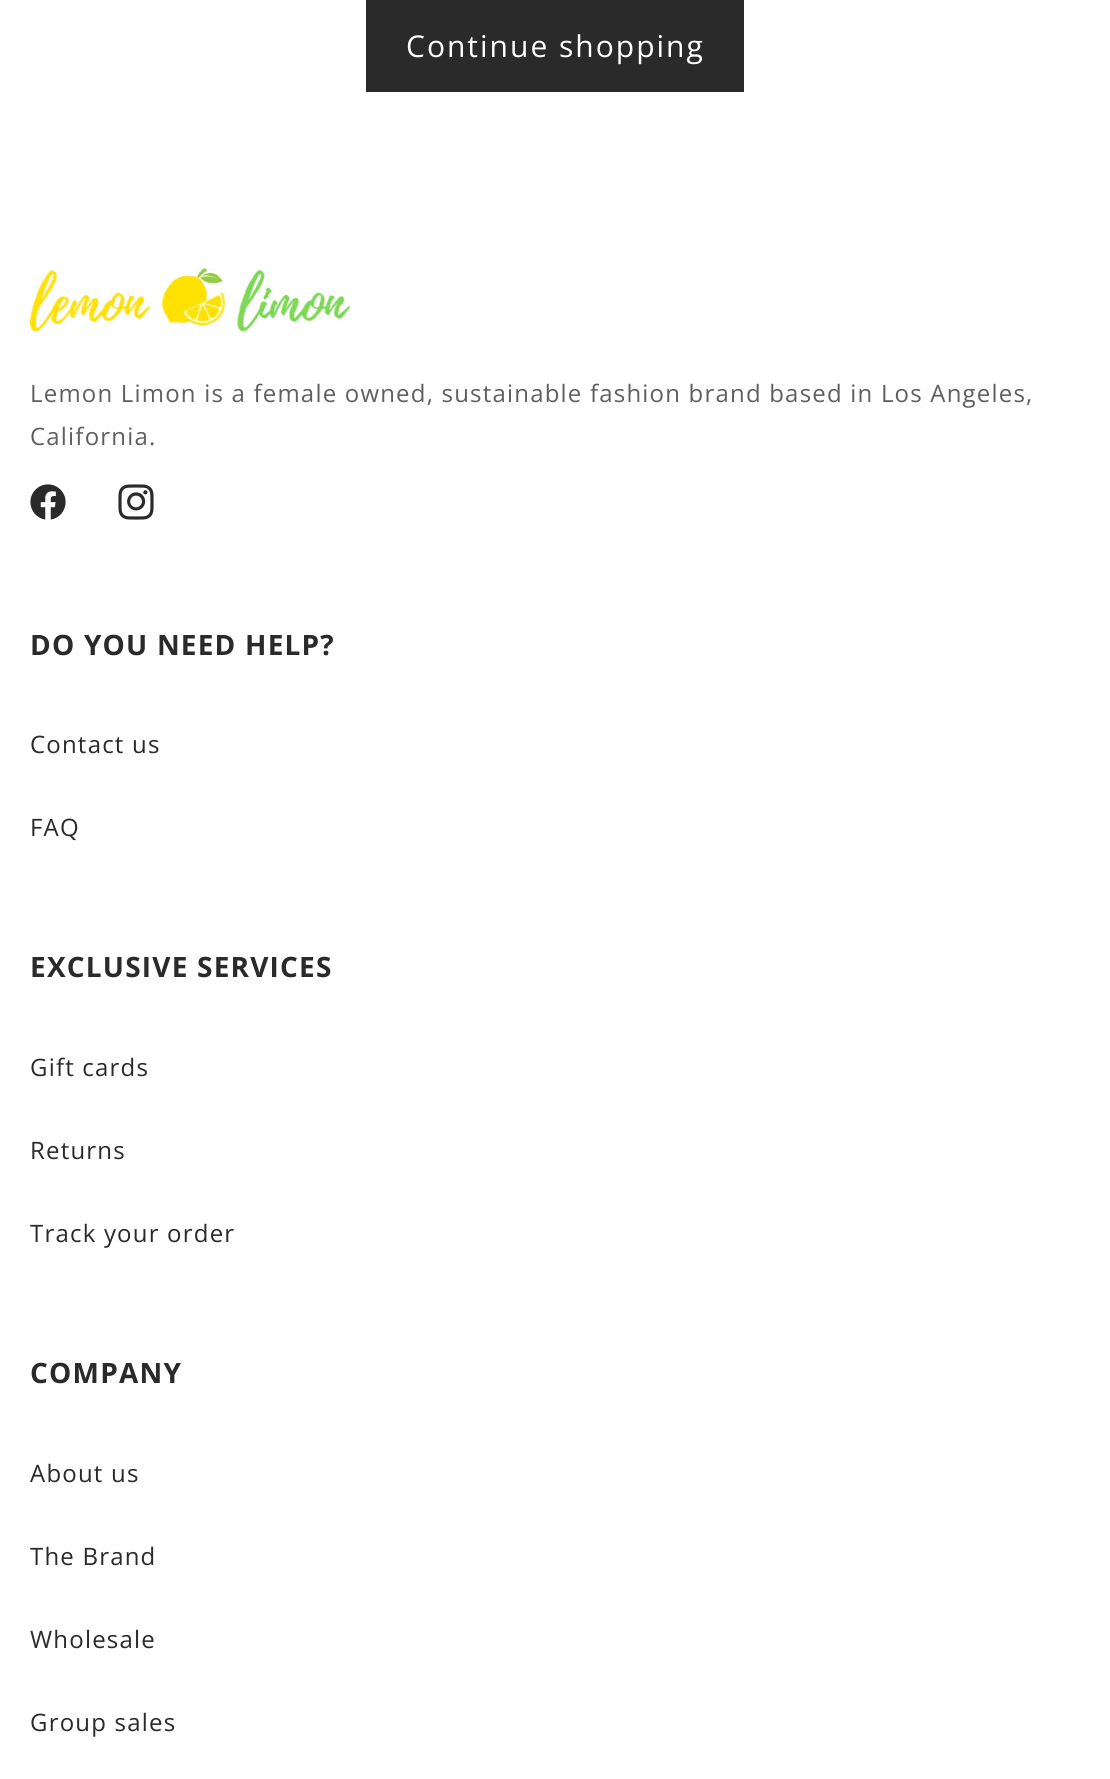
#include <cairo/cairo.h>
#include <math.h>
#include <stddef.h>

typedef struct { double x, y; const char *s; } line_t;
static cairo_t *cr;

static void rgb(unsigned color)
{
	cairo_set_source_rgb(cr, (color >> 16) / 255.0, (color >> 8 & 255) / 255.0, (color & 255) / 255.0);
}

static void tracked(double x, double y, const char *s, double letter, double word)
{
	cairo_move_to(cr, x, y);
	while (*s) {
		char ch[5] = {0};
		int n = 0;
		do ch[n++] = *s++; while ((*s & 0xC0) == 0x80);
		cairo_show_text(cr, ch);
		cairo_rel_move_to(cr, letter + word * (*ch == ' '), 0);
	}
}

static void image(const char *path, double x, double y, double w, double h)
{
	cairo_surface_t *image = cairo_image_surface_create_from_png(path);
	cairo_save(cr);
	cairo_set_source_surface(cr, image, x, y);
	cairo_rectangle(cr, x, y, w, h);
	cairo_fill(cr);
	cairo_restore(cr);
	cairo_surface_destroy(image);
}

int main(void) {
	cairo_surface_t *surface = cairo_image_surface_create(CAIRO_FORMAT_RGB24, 1110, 1779);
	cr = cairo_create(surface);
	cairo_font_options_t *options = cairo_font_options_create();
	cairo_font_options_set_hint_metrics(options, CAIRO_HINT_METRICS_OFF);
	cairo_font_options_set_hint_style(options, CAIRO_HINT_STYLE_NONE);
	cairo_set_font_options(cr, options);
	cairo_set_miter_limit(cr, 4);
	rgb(0xffffff);
	cairo_paint(cr);
	rgb(0x2a2a2a);
	cairo_rectangle(cr, 366, 0, 378, 92);
	cairo_fill(cr);
	image("img/1.png", 30, 268, 320, 64);
	image("img/2.png", 30, 484, 36, 36);
	image("img/3.png", 118, 484, 36, 36);
	cairo_select_font_face(cr, "Open Sans", CAIRO_FONT_SLANT_NORMAL, CAIRO_FONT_WEIGHT_NORMAL);
	cairo_set_font_size(cr, 30);
	rgb(0xffffff);
	tracked(406, 57, "Continue shopping", 2, 0);
	cairo_set_font_size(cr, 24);
	rgb(0x5f5f5f);
	tracked(30, 402, "Lemon Limon is a female owned, sustainable fashion brand based in Los Angeles,", 1.2, 0);
	tracked(30, 445, "California.", 1.2, 0);
	cairo_select_font_face(cr, "Open Sans", CAIRO_FONT_SLANT_NORMAL, CAIRO_FONT_WEIGHT_BOLD);
	cairo_set_font_size(cr, 28);
	rgb(0x2a2a2a);
	tracked(30, 655, "DO YOU NEED HELP?", 1.2, 0);
	cairo_select_font_face(cr, "Open Sans", CAIRO_FONT_SLANT_NORMAL, CAIRO_FONT_WEIGHT_NORMAL);
	cairo_set_font_size(cr, 24);
	tracked(30, 753, "Contact us", 1.2, 0);
	tracked(30, 836, "FAQ", 1.2, 0);
	cairo_select_font_face(cr, "Open Sans", CAIRO_FONT_SLANT_NORMAL, CAIRO_FONT_WEIGHT_BOLD);
	cairo_set_font_size(cr, 28);
	tracked(30, 977, "EXCLUSIVE SERVICES", 1.2, 0);
	cairo_select_font_face(cr, "Open Sans", CAIRO_FONT_SLANT_NORMAL, CAIRO_FONT_WEIGHT_NORMAL);
	cairo_set_font_size(cr, 24);
	{
		static const line_t items[] = {
			{30, 1076, "Gift cards"},
			{30, 1159, "Returns"},
			{30, 1242, "Track your order"},
		};
		for (size_t i = 0; i < sizeof items / sizeof *items; i++) {
			tracked(items[i].x, items[i].y, items[i].s, 1.2, 0);
		}
	}
	cairo_select_font_face(cr, "Open Sans", CAIRO_FONT_SLANT_NORMAL, CAIRO_FONT_WEIGHT_BOLD);
	cairo_set_font_size(cr, 28);
	tracked(30, 1383, "COMPANY", 1.2, 0);
	cairo_select_font_face(cr, "Open Sans", CAIRO_FONT_SLANT_NORMAL, CAIRO_FONT_WEIGHT_NORMAL);
	cairo_set_font_size(cr, 24);
	{
		static const line_t items[] = {
			{30, 1482, "About us"},
			{30, 1565, "The Brand"},
			{30, 1648, "Wholesale"},
			{30, 1731, "Group sales"},
		};
		for (size_t i = 0; i < sizeof items / sizeof *items; i++) {
			tracked(items[i].x, items[i].y, items[i].s, 1.2, 0);
		}
	}
	cairo_surface_write_to_png(surface, "page.png");
	cairo_font_options_destroy(options);
	cairo_destroy(cr);
	cairo_surface_destroy(surface);
	return 0;
}
